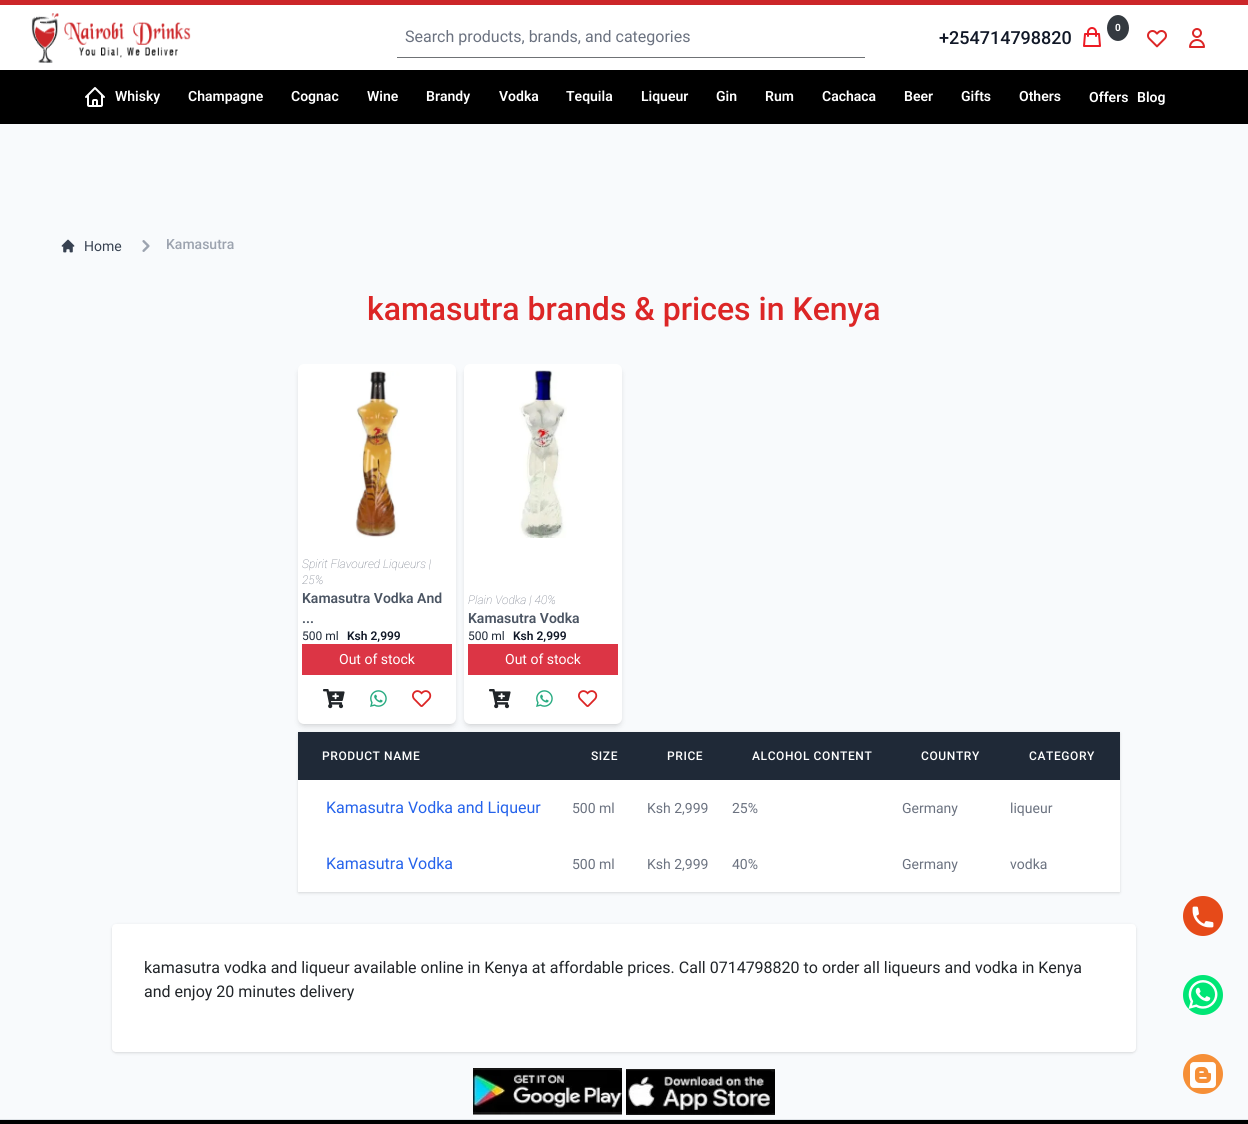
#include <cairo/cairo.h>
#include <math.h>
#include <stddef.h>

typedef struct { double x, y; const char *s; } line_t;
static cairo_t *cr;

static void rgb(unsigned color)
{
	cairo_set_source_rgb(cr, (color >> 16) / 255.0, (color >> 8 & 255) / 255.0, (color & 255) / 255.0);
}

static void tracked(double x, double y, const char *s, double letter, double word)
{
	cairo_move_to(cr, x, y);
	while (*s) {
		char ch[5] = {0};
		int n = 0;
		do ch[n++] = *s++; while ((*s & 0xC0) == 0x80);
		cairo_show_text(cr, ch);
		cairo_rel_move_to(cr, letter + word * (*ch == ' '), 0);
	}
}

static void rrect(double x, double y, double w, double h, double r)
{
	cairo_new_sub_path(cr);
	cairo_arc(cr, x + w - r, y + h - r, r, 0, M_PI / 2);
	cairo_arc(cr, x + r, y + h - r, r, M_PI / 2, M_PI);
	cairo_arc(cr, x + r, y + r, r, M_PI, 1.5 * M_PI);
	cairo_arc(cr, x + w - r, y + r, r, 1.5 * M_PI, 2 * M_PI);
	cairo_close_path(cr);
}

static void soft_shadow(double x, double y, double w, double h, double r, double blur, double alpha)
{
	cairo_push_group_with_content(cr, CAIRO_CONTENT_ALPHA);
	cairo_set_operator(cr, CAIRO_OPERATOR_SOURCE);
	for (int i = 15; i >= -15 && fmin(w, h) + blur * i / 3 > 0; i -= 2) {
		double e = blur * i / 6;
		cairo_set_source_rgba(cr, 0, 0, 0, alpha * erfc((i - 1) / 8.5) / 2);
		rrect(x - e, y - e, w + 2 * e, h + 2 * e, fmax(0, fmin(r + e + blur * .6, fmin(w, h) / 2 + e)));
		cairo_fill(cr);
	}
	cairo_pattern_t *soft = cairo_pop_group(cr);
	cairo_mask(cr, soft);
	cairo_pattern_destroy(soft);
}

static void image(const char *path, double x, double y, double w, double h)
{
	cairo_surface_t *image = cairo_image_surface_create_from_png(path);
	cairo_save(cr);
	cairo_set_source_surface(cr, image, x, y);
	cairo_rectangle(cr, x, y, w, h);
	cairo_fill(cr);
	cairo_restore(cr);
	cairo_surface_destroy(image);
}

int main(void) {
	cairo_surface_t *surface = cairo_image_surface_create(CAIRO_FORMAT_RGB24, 1248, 1124);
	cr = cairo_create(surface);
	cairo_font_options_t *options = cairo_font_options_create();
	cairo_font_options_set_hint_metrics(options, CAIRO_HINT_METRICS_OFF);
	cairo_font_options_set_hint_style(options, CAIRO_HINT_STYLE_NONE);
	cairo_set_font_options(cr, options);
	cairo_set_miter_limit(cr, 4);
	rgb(0xf8fafc);
	cairo_paint(cr);
	rgb(0x000000);
	cairo_rectangle(cr, 0, 70, 1248, 54);
	cairo_fill(cr);
	image("img/5.png", 85, 87, 20, 20);
	rgb(0x000000);
	soft_shadow(3, 13, 1242, 64, 0, 7.5, 0.1);
	rgb(0xffffff);
	cairo_rectangle(cr, 0, 5, 1248, 65);
	cairo_fill(cr);
	rgb(0xcc2629);
	cairo_rectangle(cr, 0, 0, 1248, 5);
	cairo_fill(cr);
	image("img/1.png", 31, 13, 160, 50);
	rgb(0x6f7275);
	cairo_rectangle(cr, 397, 57, 468, 1);
	cairo_fill(cr);
	image("img/2.png", 1083, 27, 18, 20);
	rgb(0x343a40);
	cairo_new_path(cr);
	cairo_move_to(cr, 1118, 15);
	cairo_curve_to(cr, 1124, 15, 1129, 21, 1129, 28);
	cairo_curve_to(cr, 1129, 35, 1124, 41, 1118, 41);
	cairo_curve_to(cr, 1112, 41, 1107, 35, 1107, 28);
	cairo_curve_to(cr, 1107, 21, 1112, 15, 1118, 15);
	cairo_close_path(cr);
	cairo_fill(cr);
	image("img/3.png", 1147, 30, 20, 18);
	image("img/4.png", 1189, 28, 16, 20);
	image("img/6.png", 61, 239, 14, 14);
	image("img/7.png", 142, 240, 8, 12);
	rgb(0x000000);
	soft_shadow(300, 368, 154, 356, 4, 2, 0.1);
	soft_shadow(299, 734, 820, 158, 0, 1, 0.1);
	soft_shadow(298, 733, 822, 160, 0, 1.5, 0.1);
	rgb(0x1f2937);
	cairo_rectangle(cr, 298, 732, 822, 48);
	cairo_fill(cr);
	rgb(0x000000);
	soft_shadow(299, 369, 156, 358, 5, 3, 0.1);
	rgb(0xffffff);
	rrect(298, 364, 158, 360, 6);
	cairo_fill(cr);
	image("img/8.png", 355, 371, 45, 167);
	rgb(0xdc3545);
	cairo_rectangle(cr, 302, 644, 150, 31);
	cairo_fill(cr);
	image("img/9.png", 323, 689, 22, 20);
	image("img/10.png", 370, 690, 17, 17);
	image("img/11.png", 412, 690, 20, 17);
	rgb(0x000000);
	soft_shadow(466, 368, 154, 356, 4, 2, 0.1);
	soft_shadow(465, 369, 156, 358, 5, 3, 0.1);
	rgb(0xffffff);
	rrect(464, 364, 158, 360, 6);
	cairo_fill(cr);
	image("img/12.png", 519, 370, 48, 168);
	rgb(0xdc3545);
	cairo_rectangle(cr, 468, 644, 150, 31);
	cairo_fill(cr);
	image("img/9.png", 489, 689, 22, 20);
	image("img/10.png", 536, 690, 17, 17);
	image("img/11.png", 578, 690, 20, 17);
	rgb(0xffffff);
	cairo_rectangle(cr, 298, 780, 822, 112);
	cairo_fill(cr);
	rgb(0x000000);
	soft_shadow(113, 926, 1022, 126, 3, 1, 0.1);
	soft_shadow(112, 925, 1024, 128, 4, 1.5, 0.1);
	rgb(0xffffff);
	rrect(112, 924, 1024, 128, 4);
	cairo_fill(cr);
	rgb(0xe64a19);
	cairo_arc(cr, 1203, 916, 20, 0, 2 * M_PI);
	cairo_fill(cr);
	image("img/13.png", 1192, 906, 22, 22);
	rgb(0x00e676);
	cairo_arc(cr, 1203, 995, 20, 0, 2 * M_PI);
	cairo_fill(cr);
	image("img/14.png", 1188, 980, 30, 29);
	rgb(0xf68f37);
	cairo_arc(cr, 1203, 1074, 20, 0, 2 * M_PI);
	cairo_fill(cr);
	image("img/15.png", 1190, 1062, 26, 26);
	image("img/16.png", 473, 1068, 149, 47);
	image("img/17.png", 626, 1069, 149, 46);
	rgb(0x000000);
	cairo_rectangle(cr, 0, 1120, 1248, 4);
	cairo_fill(cr);
	rgb(0xdee2e6);
	cairo_rectangle(cr, 0, 1119, 1248, 1);
	cairo_fill(cr);
	cairo_select_font_face(cr, "Roboto", CAIRO_FONT_SLANT_NORMAL, CAIRO_FONT_WEIGHT_NORMAL);
	cairo_set_font_size(cr, 16);
	rgb(0x6b7280);
	cairo_move_to(cr, 405, 42);
	cairo_show_text(cr, "Search products, brands, and categories");
	cairo_select_font_face(cr, "Roboto Medium", CAIRO_FONT_SLANT_NORMAL, CAIRO_FONT_WEIGHT_NORMAL);
	cairo_set_font_size(cr, 18);
	rgb(0x111827);
	cairo_move_to(cr, 939, 44);
	cairo_show_text(cr, "+254714798820");
	cairo_select_font_face(cr, "Roboto", CAIRO_FONT_SLANT_NORMAL, CAIRO_FONT_WEIGHT_BOLD);
	cairo_set_font_size(cr, 10);
	rgb(0xffffff);
	cairo_move_to(cr, 1115, 31);
	cairo_show_text(cr, "0");
	cairo_select_font_face(cr, "Roboto SemiBold", CAIRO_FONT_SLANT_NORMAL, CAIRO_FONT_WEIGHT_NORMAL);
	cairo_set_font_size(cr, 14);
	{
		static const line_t items[] = {
			{115, 101, "Whisky"},
			{188, 101, "Champagne"},
			{291, 101, "Cognac"},
			{367, 101, "Wine"},
			{426, 101, "Brandy"},
			{499, 101, "Vodka"},
			{566, 101, "Tequila"},
			{641, 101, "Liqueur"},
			{716, 101, "Gin"},
			{765, 101, "Rum"},
			{822, 101, "Cachaca"},
			{904, 101, "Beer"},
			{961, 101, "Gifts"},
			{1019, 101, "Others"},
			{1089, 102, "Offers"},
			{1137, 102, "Blog"},
		};
		for (size_t i = 0; i < sizeof items / sizeof *items; i++) {
			cairo_move_to(cr, items[i].x, items[i].y);
			cairo_show_text(cr, items[i].s);
		}
	}
	cairo_select_font_face(cr, "Roboto", CAIRO_FONT_SLANT_NORMAL, CAIRO_FONT_WEIGHT_NORMAL);
	rgb(0x374151);
	cairo_move_to(cr, 84, 251);
	cairo_show_text(cr, "Home");
	cairo_select_font_face(cr, "Roboto Medium", CAIRO_FONT_SLANT_NORMAL, CAIRO_FONT_WEIGHT_NORMAL);
	rgb(0x9ca3af);
	cairo_move_to(cr, 166, 249);
	cairo_show_text(cr, "Kamasutra");
	cairo_set_font_size(cr, 32);
	rgb(0xdc2626);
	cairo_move_to(cr, 367, 320);
	cairo_show_text(cr, "kamasutra brands & prices in Kenya");
	cairo_select_font_face(cr, "Roboto Thin", CAIRO_FONT_SLANT_ITALIC, CAIRO_FONT_WEIGHT_NORMAL);
	cairo_set_font_size(cr, 12);
	rgb(0x6b7280);
	cairo_move_to(cr, 302, 568);
	cairo_show_text(cr, "Spirit Flavoured Liqueurs |");
	cairo_move_to(cr, 302, 584);
	cairo_show_text(cr, "25%");
	cairo_select_font_face(cr, "Roboto SemiBold", CAIRO_FONT_SLANT_NORMAL, CAIRO_FONT_WEIGHT_NORMAL);
	cairo_set_font_size(cr, 14);
	rgb(0x4b5563);
	cairo_move_to(cr, 302, 603);
	cairo_show_text(cr, "Kamasutra Vodka And");
	cairo_move_to(cr, 302, 623);
	cairo_show_text(cr, "...");
	cairo_select_font_face(cr, "Roboto", CAIRO_FONT_SLANT_NORMAL, CAIRO_FONT_WEIGHT_NORMAL);
	cairo_set_font_size(cr, 12);
	rgb(0x1f2937);
	cairo_move_to(cr, 302, 640);
	cairo_show_text(cr, "500 ml");
	cairo_select_font_face(cr, "Roboto SemiBold", CAIRO_FONT_SLANT_NORMAL, CAIRO_FONT_WEIGHT_NORMAL);
	rgb(0x111827);
	cairo_move_to(cr, 347, 640);
	cairo_show_text(cr, "Ksh 2,999");
	cairo_select_font_face(cr, "Roboto", CAIRO_FONT_SLANT_NORMAL, CAIRO_FONT_WEIGHT_NORMAL);
	cairo_set_font_size(cr, 14);
	rgb(0xffffff);
	cairo_move_to(cr, 339, 664);
	cairo_show_text(cr, "Out of stock");
	cairo_select_font_face(cr, "Roboto Thin", CAIRO_FONT_SLANT_ITALIC, CAIRO_FONT_WEIGHT_NORMAL);
	cairo_set_font_size(cr, 12);
	rgb(0x6b7280);
	cairo_move_to(cr, 468, 604);
	cairo_show_text(cr, "Plain Vodka | 40%");
	cairo_select_font_face(cr, "Roboto SemiBold", CAIRO_FONT_SLANT_NORMAL, CAIRO_FONT_WEIGHT_NORMAL);
	cairo_set_font_size(cr, 14);
	rgb(0x4b5563);
	cairo_move_to(cr, 468, 623);
	cairo_show_text(cr, "Kamasutra Vodka");
	cairo_select_font_face(cr, "Roboto", CAIRO_FONT_SLANT_NORMAL, CAIRO_FONT_WEIGHT_NORMAL);
	cairo_set_font_size(cr, 12);
	rgb(0x1f2937);
	cairo_move_to(cr, 468, 640);
	cairo_show_text(cr, "500 ml");
	cairo_select_font_face(cr, "Roboto SemiBold", CAIRO_FONT_SLANT_NORMAL, CAIRO_FONT_WEIGHT_NORMAL);
	rgb(0x111827);
	cairo_move_to(cr, 513, 640);
	cairo_show_text(cr, "Ksh 2,999");
	cairo_select_font_face(cr, "Roboto", CAIRO_FONT_SLANT_NORMAL, CAIRO_FONT_WEIGHT_NORMAL);
	cairo_set_font_size(cr, 14);
	rgb(0xffffff);
	cairo_move_to(cr, 505, 664);
	cairo_show_text(cr, "Out of stock");
	cairo_select_font_face(cr, "Roboto Medium", CAIRO_FONT_SLANT_NORMAL, CAIRO_FONT_WEIGHT_NORMAL);
	cairo_set_font_size(cr, 12);
	{
		static const line_t items[] = {
			{322, 760, "PRODUCT NAME"},
			{591, 760, "SIZE"},
			{667, 760, "PRICE"},
			{752, 760, "ALCOHOL CONTENT"},
			{921, 760, "COUNTRY"},
			{1029, 760, "CATEGORY"},
		};
		for (size_t i = 0; i < sizeof items / sizeof *items; i++) {
			tracked(items[i].x, items[i].y, items[i].s, 0.6, 0);
		}
	}
	cairo_select_font_face(cr, "Roboto", CAIRO_FONT_SLANT_NORMAL, CAIRO_FONT_WEIGHT_NORMAL);
	cairo_set_font_size(cr, 16);
	rgb(0x2563eb);
	cairo_move_to(cr, 326, 813);
	cairo_show_text(cr, "Kamasutra Vodka and Liqueur");
	cairo_set_font_size(cr, 14);
	rgb(0x6b7280);
	{
		static const line_t items[] = {
			{572, 813, "500 ml"},
			{647, 813, "Ksh 2,999"},
			{732, 813, "25%"},
			{902, 813, "Germany"},
			{1010, 813, "liqueur"},
		};
		for (size_t i = 0; i < sizeof items / sizeof *items; i++) {
			cairo_move_to(cr, items[i].x, items[i].y);
			cairo_show_text(cr, items[i].s);
		}
	}
	cairo_set_font_size(cr, 16);
	rgb(0x2563eb);
	cairo_move_to(cr, 326, 869);
	cairo_show_text(cr, "Kamasutra Vodka");
	cairo_set_font_size(cr, 14);
	rgb(0x6b7280);
	{
		static const line_t items[] = {
			{572, 869, "500 ml"},
			{647, 869, "Ksh 2,999"},
			{732, 869, "40%"},
			{902, 869, "Germany"},
			{1010, 869, "vodka"},
		};
		for (size_t i = 0; i < sizeof items / sizeof *items; i++) {
			cairo_move_to(cr, items[i].x, items[i].y);
			cairo_show_text(cr, items[i].s);
		}
	}
	cairo_set_font_size(cr, 16);
	rgb(0x212529);
	cairo_move_to(cr, 144, 973);
	cairo_show_text(cr, "kamasutra vodka and liqueur available online in Kenya at affordable prices. Call 0714798820 to order all liqueurs and vodka in Kenya");
	cairo_move_to(cr, 144, 997);
	cairo_show_text(cr, "and enjoy 20 minutes delivery");
	cairo_surface_write_to_png(surface, "page.png");
	cairo_font_options_destroy(options);
	cairo_destroy(cr);
	cairo_surface_destroy(surface);
	return 0;
}
